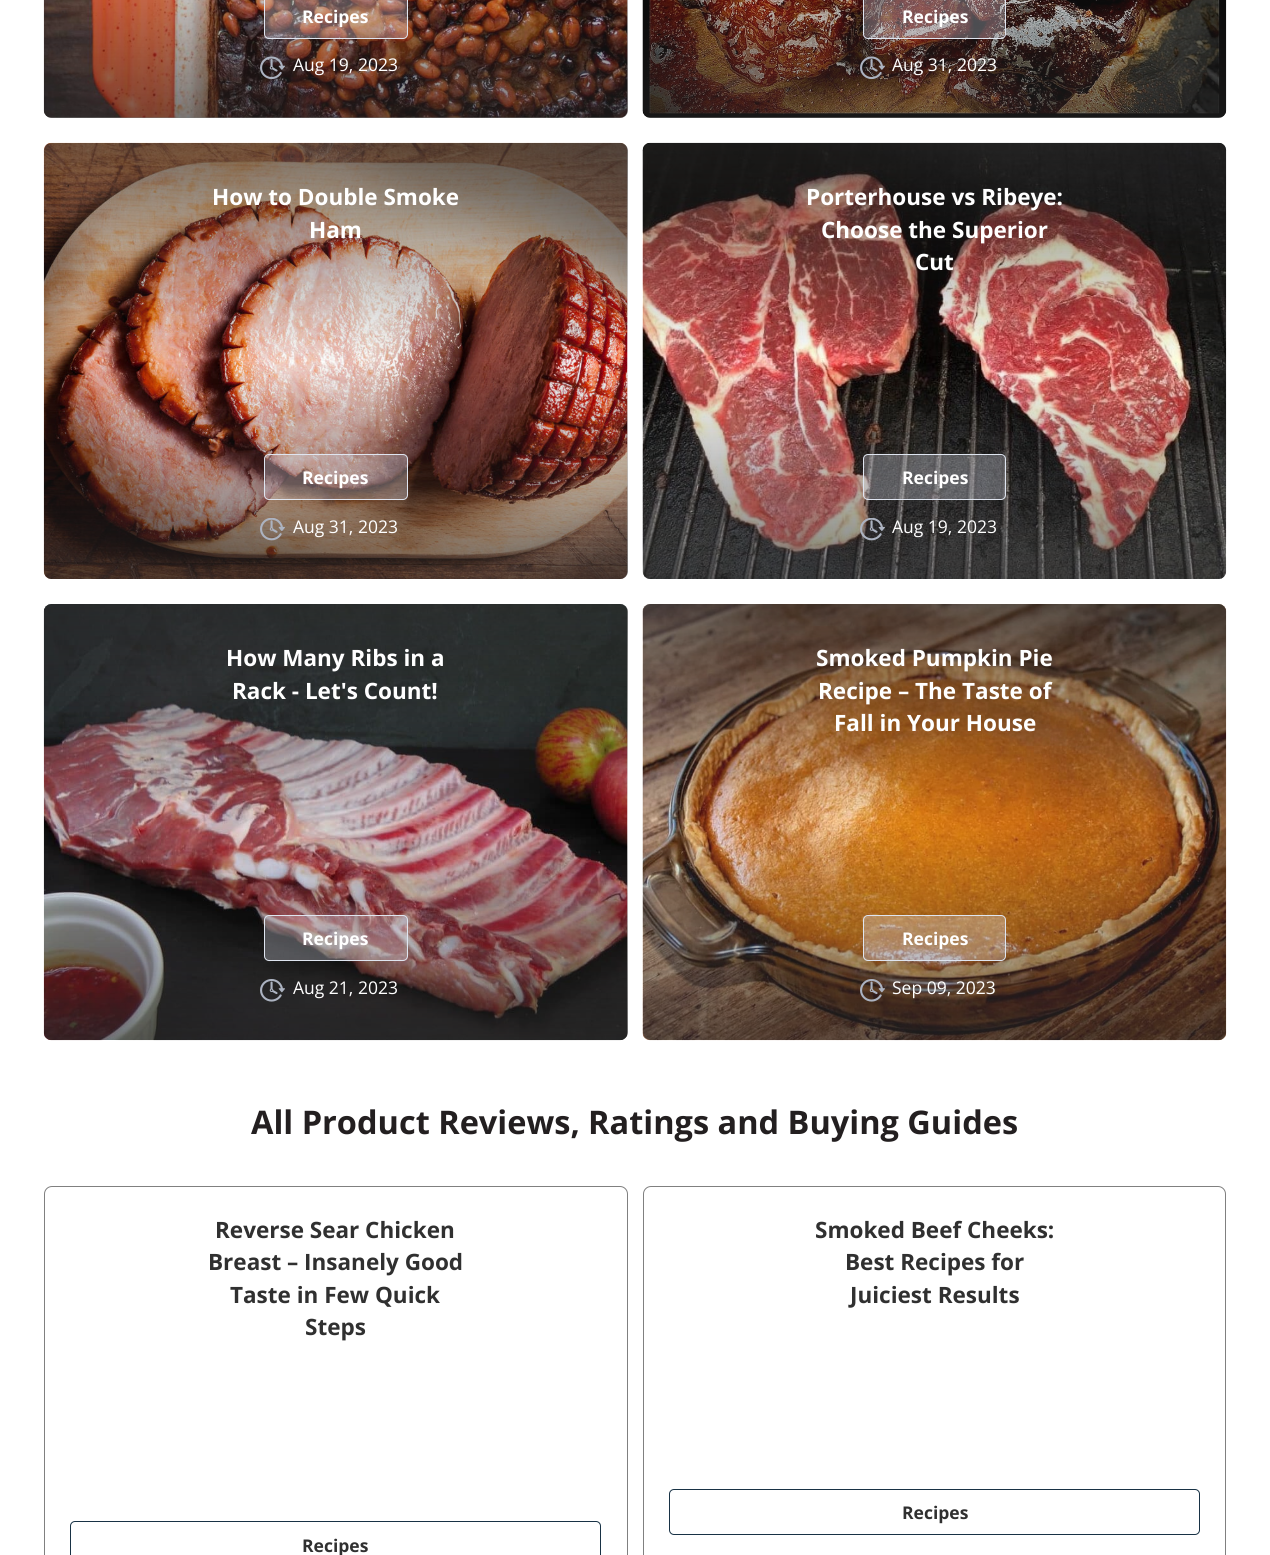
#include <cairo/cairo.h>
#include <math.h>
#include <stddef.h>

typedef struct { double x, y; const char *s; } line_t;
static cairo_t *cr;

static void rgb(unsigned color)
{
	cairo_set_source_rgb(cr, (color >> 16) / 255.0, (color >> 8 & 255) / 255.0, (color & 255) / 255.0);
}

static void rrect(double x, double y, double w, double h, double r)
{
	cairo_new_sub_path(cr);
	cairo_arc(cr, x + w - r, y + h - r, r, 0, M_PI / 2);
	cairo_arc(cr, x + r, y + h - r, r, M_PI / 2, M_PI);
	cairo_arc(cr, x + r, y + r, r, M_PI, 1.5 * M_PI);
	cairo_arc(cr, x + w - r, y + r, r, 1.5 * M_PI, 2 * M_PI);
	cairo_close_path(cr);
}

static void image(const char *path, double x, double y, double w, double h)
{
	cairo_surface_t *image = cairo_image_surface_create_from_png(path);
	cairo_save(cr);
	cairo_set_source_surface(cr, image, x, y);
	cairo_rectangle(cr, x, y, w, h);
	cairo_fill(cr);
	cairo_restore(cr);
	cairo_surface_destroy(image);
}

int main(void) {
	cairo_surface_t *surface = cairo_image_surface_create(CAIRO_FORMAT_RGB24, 1270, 1555);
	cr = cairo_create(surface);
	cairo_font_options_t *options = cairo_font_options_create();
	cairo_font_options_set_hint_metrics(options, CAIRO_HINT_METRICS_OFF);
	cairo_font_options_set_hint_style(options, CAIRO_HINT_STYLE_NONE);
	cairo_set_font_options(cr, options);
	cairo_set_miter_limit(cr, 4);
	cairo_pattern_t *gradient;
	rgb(0xffffff);
	cairo_paint(cr);
	image("img/1.png", 43, 0, 585, 118);
	gradient = cairo_pattern_create_linear(336, 118, 336, -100);
	cairo_pattern_add_color_stop_rgba(gradient, 0, 0.153, 0.149, 0.149, 0.6);
	cairo_pattern_add_color_stop_rgba(gradient, 1, 0.153, 0.149, 0.149, 0);
	cairo_set_source(cr, gradient);
	cairo_pattern_destroy(gradient);
	cairo_new_path(cr);
	cairo_move_to(cr, 44, -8);
	cairo_line_to(cr, 628, -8);
	cairo_line_to(cr, 628, 110);
	cairo_curve_to(cr, 628, 114.5, 624.5, 118, 620, 118);
	cairo_line_to(cr, 52, 118);
	cairo_curve_to(cr, 47.5, 118, 44, 114.5, 44, 110);
	cairo_close_path(cr);
	cairo_fill(cr);
	cairo_set_source_rgba(cr, 0.875, 0.898, 0.941, 0.3);
	rrect(264.5, -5.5, 143, 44, 4.5);
	cairo_fill_preserve(cr);
	rgb(0xdfe5f0);
	cairo_set_line_width(cr, 1);
	cairo_stroke(cr);
	image("img/2.png", 260, 56, 25, 24);
	image("img/3.png", 642, 0, 585, 118);
	gradient = cairo_pattern_create_linear(934, 118, 934, -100);
	cairo_pattern_add_color_stop_rgba(gradient, 0, 0.153, 0.149, 0.149, 0.6);
	cairo_pattern_add_color_stop_rgba(gradient, 1, 0.153, 0.149, 0.149, 0);
	cairo_set_source(cr, gradient);
	cairo_pattern_destroy(gradient);
	cairo_new_path(cr);
	cairo_move_to(cr, 643, -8);
	cairo_line_to(cr, 1226, -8);
	cairo_line_to(cr, 1226, 110);
	cairo_curve_to(cr, 1226, 114.5, 1222.5, 118, 1218, 118);
	cairo_line_to(cr, 651, 118);
	cairo_curve_to(cr, 646.5, 118, 643, 114.5, 643, 110);
	cairo_close_path(cr);
	cairo_fill(cr);
	cairo_set_source_rgba(cr, 0.875, 0.898, 0.941, 0.3);
	rrect(863.5, -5.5, 142, 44, 4.5);
	cairo_fill_preserve(cr);
	rgb(0xdfe5f0);
	cairo_stroke(cr);
	image("img/4.png", 860, 56, 25, 24);
	image("img/5.png", 43, 142, 585, 437);
	gradient = cairo_pattern_create_linear(335, 142, 335, 361);
	cairo_pattern_add_color_stop_rgba(gradient, 0, 0.153, 0.149, 0.149, 0.6);
	cairo_pattern_add_color_stop_rgba(gradient, 1, 0.153, 0.149, 0.149, 0);
	cairo_set_source(cr, gradient);
	cairo_pattern_destroy(gradient);
	cairo_new_path(cr);
	cairo_move_to(cr, 52, 143);
	cairo_line_to(cr, 620, 143);
	cairo_curve_to(cr, 624.5, 143, 628, 146.5, 628, 151);
	cairo_line_to(cr, 628, 361);
	cairo_line_to(cr, 44, 361);
	cairo_line_to(cr, 44, 151);
	cairo_curve_to(cr, 44, 146.5, 47.5, 143, 52, 143);
	cairo_close_path(cr);
	cairo_fill(cr);
	gradient = cairo_pattern_create_linear(336, 579, 336, 361);
	cairo_pattern_add_color_stop_rgba(gradient, 0, 0.153, 0.149, 0.149, 0.6);
	cairo_pattern_add_color_stop_rgba(gradient, 1, 0.153, 0.149, 0.149, 0);
	cairo_set_source(cr, gradient);
	cairo_pattern_destroy(gradient);
	cairo_new_path(cr);
	cairo_move_to(cr, 44, 361);
	cairo_line_to(cr, 628, 361);
	cairo_line_to(cr, 628, 571);
	cairo_curve_to(cr, 628, 575.5, 624.5, 579, 620, 579);
	cairo_line_to(cr, 52, 579);
	cairo_curve_to(cr, 47.5, 579, 44, 575.5, 44, 571);
	cairo_close_path(cr);
	cairo_fill(cr);
	cairo_set_source_rgba(cr, 0.875, 0.898, 0.941, 0.3);
	rrect(264.5, 454.5, 143, 45, 4.5);
	cairo_fill_preserve(cr);
	rgb(0xdfe5f0);
	cairo_stroke(cr);
	image("img/6.png", 260, 518, 25, 23);
	image("img/7.png", 642, 142, 585, 437);
	gradient = cairo_pattern_create_linear(935, 142, 935, 361);
	cairo_pattern_add_color_stop_rgba(gradient, 0, 0.153, 0.149, 0.149, 0.6);
	cairo_pattern_add_color_stop_rgba(gradient, 1, 0.153, 0.149, 0.149, 0);
	cairo_set_source(cr, gradient);
	cairo_pattern_destroy(gradient);
	cairo_new_path(cr);
	cairo_move_to(cr, 651, 143);
	cairo_line_to(cr, 1218, 143);
	cairo_curve_to(cr, 1222.5, 143, 1226, 146.5, 1226, 151);
	cairo_line_to(cr, 1226, 361);
	cairo_line_to(cr, 643, 361);
	cairo_line_to(cr, 643, 151);
	cairo_curve_to(cr, 643, 146.5, 646.5, 143, 651, 143);
	cairo_close_path(cr);
	cairo_fill(cr);
	gradient = cairo_pattern_create_linear(934, 579, 934, 361);
	cairo_pattern_add_color_stop_rgba(gradient, 0, 0.153, 0.149, 0.149, 0.6);
	cairo_pattern_add_color_stop_rgba(gradient, 1, 0.153, 0.149, 0.149, 0);
	cairo_set_source(cr, gradient);
	cairo_pattern_destroy(gradient);
	cairo_new_path(cr);
	cairo_move_to(cr, 643, 361);
	cairo_line_to(cr, 1226, 361);
	cairo_line_to(cr, 1226, 571);
	cairo_curve_to(cr, 1226, 575.5, 1222.5, 579, 1218, 579);
	cairo_line_to(cr, 651, 579);
	cairo_curve_to(cr, 646.5, 579, 643, 575.5, 643, 571);
	cairo_close_path(cr);
	cairo_fill(cr);
	cairo_set_source_rgba(cr, 0.875, 0.898, 0.941, 0.3);
	rrect(863.5, 454.5, 142, 45, 4.5);
	cairo_fill_preserve(cr);
	rgb(0xdfe5f0);
	cairo_stroke(cr);
	image("img/8.png", 860, 518, 25, 23);
	image("img/9.png", 43, 604, 585, 437);
	gradient = cairo_pattern_create_linear(335, 604, 335, 822);
	cairo_pattern_add_color_stop_rgba(gradient, 0, 0.153, 0.149, 0.149, 0.6);
	cairo_pattern_add_color_stop_rgba(gradient, 1, 0.153, 0.149, 0.149, 0);
	cairo_set_source(cr, gradient);
	cairo_pattern_destroy(gradient);
	cairo_new_path(cr);
	cairo_move_to(cr, 52, 604);
	cairo_line_to(cr, 620, 604);
	cairo_curve_to(cr, 624.5, 604, 628, 607.5, 628, 612);
	cairo_line_to(cr, 628, 823);
	cairo_line_to(cr, 44, 823);
	cairo_line_to(cr, 44, 612);
	cairo_curve_to(cr, 44, 607.5, 47.5, 604, 52, 604);
	cairo_close_path(cr);
	cairo_fill(cr);
	gradient = cairo_pattern_create_linear(336, 1040, 336, 823);
	cairo_pattern_add_color_stop_rgba(gradient, 0, 0.153, 0.149, 0.149, 0.6);
	cairo_pattern_add_color_stop_rgba(gradient, 1, 0.153, 0.149, 0.149, 0);
	cairo_set_source(cr, gradient);
	cairo_pattern_destroy(gradient);
	cairo_new_path(cr);
	cairo_move_to(cr, 44, 823);
	cairo_line_to(cr, 628, 823);
	cairo_line_to(cr, 628, 1032);
	cairo_curve_to(cr, 628, 1036.5, 624.5, 1040, 620, 1040);
	cairo_line_to(cr, 52, 1040);
	cairo_curve_to(cr, 47.5, 1040, 44, 1036.5, 44, 1032);
	cairo_close_path(cr);
	cairo_fill(cr);
	cairo_set_source_rgba(cr, 0.875, 0.898, 0.941, 0.3);
	rrect(264.5, 915.5, 143, 45, 4.5);
	cairo_fill_preserve(cr);
	rgb(0xdfe5f0);
	cairo_stroke(cr);
	image("img/10.png", 260, 979, 25, 23);
	image("img/11.png", 642, 604, 585, 437);
	gradient = cairo_pattern_create_linear(935, 604, 935, 822);
	cairo_pattern_add_color_stop_rgba(gradient, 0, 0.153, 0.149, 0.149, 0.6);
	cairo_pattern_add_color_stop_rgba(gradient, 1, 0.153, 0.149, 0.149, 0);
	cairo_set_source(cr, gradient);
	cairo_pattern_destroy(gradient);
	cairo_new_path(cr);
	cairo_move_to(cr, 651, 604);
	cairo_line_to(cr, 1218, 604);
	cairo_curve_to(cr, 1222.5, 604, 1226, 607.5, 1226, 612);
	cairo_line_to(cr, 1226, 823);
	cairo_line_to(cr, 643, 823);
	cairo_line_to(cr, 643, 612);
	cairo_curve_to(cr, 643, 607.5, 646.5, 604, 651, 604);
	cairo_close_path(cr);
	cairo_fill(cr);
	gradient = cairo_pattern_create_linear(934, 1040, 934, 823);
	cairo_pattern_add_color_stop_rgba(gradient, 0, 0.153, 0.149, 0.149, 0.6);
	cairo_pattern_add_color_stop_rgba(gradient, 1, 0.153, 0.149, 0.149, 0);
	cairo_set_source(cr, gradient);
	cairo_pattern_destroy(gradient);
	cairo_new_path(cr);
	cairo_move_to(cr, 643, 823);
	cairo_line_to(cr, 1226, 823);
	cairo_line_to(cr, 1226, 1032);
	cairo_curve_to(cr, 1226, 1036.5, 1222.5, 1040, 1218, 1040);
	cairo_line_to(cr, 651, 1040);
	cairo_curve_to(cr, 646.5, 1040, 643, 1036.5, 643, 1032);
	cairo_close_path(cr);
	cairo_fill(cr);
	cairo_set_source_rgba(cr, 0.875, 0.898, 0.941, 0.3);
	rrect(863.5, 915.5, 142, 45, 4.5);
	cairo_fill_preserve(cr);
	rgb(0xdfe5f0);
	cairo_stroke(cr);
	image("img/12.png", 860, 979, 25, 23);
	rrect(44.5, 1186.5, 583, 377, 7.5);
	rgb(0x808080);
	cairo_stroke(cr);
	rrect(70.5, 1521.5, 530, 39, 4.5);
	rgb(0x183245);
	cairo_stroke(cr);
	rrect(643.5, 1186.5, 582, 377, 7.5);
	rgb(0x808080);
	cairo_stroke(cr);
	rrect(669.5, 1489.5, 530, 45, 4.5);
	rgb(0x183245);
	cairo_stroke(cr);
	cairo_select_font_face(cr, "Open Sans", CAIRO_FONT_SLANT_NORMAL, CAIRO_FONT_WEIGHT_BOLD);
	cairo_set_font_size(cr, 17.5);
	rgb(0xffffff);
	cairo_move_to(cr, 302, 23);
	cairo_show_text(cr, "Recipes");
	cairo_select_font_face(cr, "Open Sans", CAIRO_FONT_SLANT_NORMAL, CAIRO_FONT_WEIGHT_NORMAL);
	cairo_move_to(cr, 293, 71);
	cairo_show_text(cr, "Aug 19, 2023");
	cairo_select_font_face(cr, "Open Sans", CAIRO_FONT_SLANT_NORMAL, CAIRO_FONT_WEIGHT_BOLD);
	cairo_move_to(cr, 902, 23);
	cairo_show_text(cr, "Recipes");
	cairo_select_font_face(cr, "Open Sans", CAIRO_FONT_SLANT_NORMAL, CAIRO_FONT_WEIGHT_NORMAL);
	cairo_move_to(cr, 892, 71);
	cairo_show_text(cr, "Aug 31, 2023");
	cairo_select_font_face(cr, "Open Sans", CAIRO_FONT_SLANT_NORMAL, CAIRO_FONT_WEIGHT_BOLD);
	cairo_set_font_size(cr, 22.5);
	cairo_move_to(cr, 212, 205);
	cairo_show_text(cr, "How to Double Smoke");
	cairo_move_to(cr, 309, 238);
	cairo_show_text(cr, "Ham");
	cairo_set_font_size(cr, 17.5);
	cairo_move_to(cr, 302, 484);
	cairo_show_text(cr, "Recipes");
	cairo_select_font_face(cr, "Open Sans", CAIRO_FONT_SLANT_NORMAL, CAIRO_FONT_WEIGHT_NORMAL);
	cairo_move_to(cr, 293, 533);
	cairo_show_text(cr, "Aug 31, 2023");
	cairo_select_font_face(cr, "Open Sans", CAIRO_FONT_SLANT_NORMAL, CAIRO_FONT_WEIGHT_BOLD);
	cairo_set_font_size(cr, 22.5);
	{
		static const line_t items[] = {
			{806, 205, "Porterhouse vs Ribeye:"},
			{821, 238, "Choose the Superior"},
			{915, 270, "Cut"},
		};
		for (size_t i = 0; i < sizeof items / sizeof *items; i++) {
			cairo_move_to(cr, items[i].x, items[i].y);
			cairo_show_text(cr, items[i].s);
		}
	}
	cairo_set_font_size(cr, 17.5);
	cairo_move_to(cr, 902, 484);
	cairo_show_text(cr, "Recipes");
	cairo_select_font_face(cr, "Open Sans", CAIRO_FONT_SLANT_NORMAL, CAIRO_FONT_WEIGHT_NORMAL);
	cairo_move_to(cr, 892, 533);
	cairo_show_text(cr, "Aug 19, 2023");
	cairo_select_font_face(cr, "Open Sans", CAIRO_FONT_SLANT_NORMAL, CAIRO_FONT_WEIGHT_BOLD);
	cairo_set_font_size(cr, 22.5);
	cairo_move_to(cr, 226, 666);
	cairo_show_text(cr, "How Many Ribs in a");
	cairo_move_to(cr, 232, 699);
	cairo_show_text(cr, "Rack - Let's Count!");
	cairo_set_font_size(cr, 17.5);
	cairo_move_to(cr, 302, 945);
	cairo_show_text(cr, "Recipes");
	cairo_select_font_face(cr, "Open Sans", CAIRO_FONT_SLANT_NORMAL, CAIRO_FONT_WEIGHT_NORMAL);
	cairo_move_to(cr, 293, 994);
	cairo_show_text(cr, "Aug 21, 2023");
	cairo_select_font_face(cr, "Open Sans", CAIRO_FONT_SLANT_NORMAL, CAIRO_FONT_WEIGHT_BOLD);
	cairo_set_font_size(cr, 22.5);
	{
		static const line_t items[] = {
			{816, 666, "Smoked Pumpkin Pie"},
			{818, 699, "Recipe – The Taste of"},
			{834, 731, "Fall in Your House"},
		};
		for (size_t i = 0; i < sizeof items / sizeof *items; i++) {
			cairo_move_to(cr, items[i].x, items[i].y);
			cairo_show_text(cr, items[i].s);
		}
	}
	cairo_set_font_size(cr, 17.5);
	cairo_move_to(cr, 902, 945);
	cairo_show_text(cr, "Recipes");
	cairo_select_font_face(cr, "Open Sans", CAIRO_FONT_SLANT_NORMAL, CAIRO_FONT_WEIGHT_NORMAL);
	cairo_move_to(cr, 892, 994);
	cairo_show_text(cr, "Sep 09, 2023");
	cairo_select_font_face(cr, "Open Sans", CAIRO_FONT_SLANT_NORMAL, CAIRO_FONT_WEIGHT_BOLD);
	cairo_set_font_size(cr, 32.5);
	rgb(0x231f20);
	cairo_move_to(cr, 251, 1134);
	cairo_show_text(cr, "All Product Reviews, Ratings and Buying Guides");
	cairo_set_font_size(cr, 22.5);
	rgb(0x303030);
	{
		static const line_t items[] = {
			{215, 1238, "Reverse Sear Chicken"},
			{208, 1270, "Breast – Insanely Good"},
			{230, 1303, "Taste in Few Quick"},
			{305, 1335, "Steps"},
		};
		for (size_t i = 0; i < sizeof items / sizeof *items; i++) {
			cairo_move_to(cr, items[i].x, items[i].y);
			cairo_show_text(cr, items[i].s);
		}
	}
	cairo_set_font_size(cr, 17.5);
	cairo_move_to(cr, 302, 1552);
	cairo_show_text(cr, "Recipes");
	cairo_set_font_size(cr, 22.5);
	{
		static const line_t items[] = {
			{815, 1238, "Smoked Beef Cheeks:"},
			{845, 1270, "Best Recipes for"},
			{850, 1303, "Juiciest Results"},
		};
		for (size_t i = 0; i < sizeof items / sizeof *items; i++) {
			cairo_move_to(cr, items[i].x, items[i].y);
			cairo_show_text(cr, items[i].s);
		}
	}
	cairo_set_font_size(cr, 17.5);
	cairo_move_to(cr, 902, 1519);
	cairo_show_text(cr, "Recipes");
	cairo_surface_write_to_png(surface, "page.png");
	cairo_font_options_destroy(options);
	cairo_destroy(cr);
	cairo_surface_destroy(surface);
	return 0;
}
